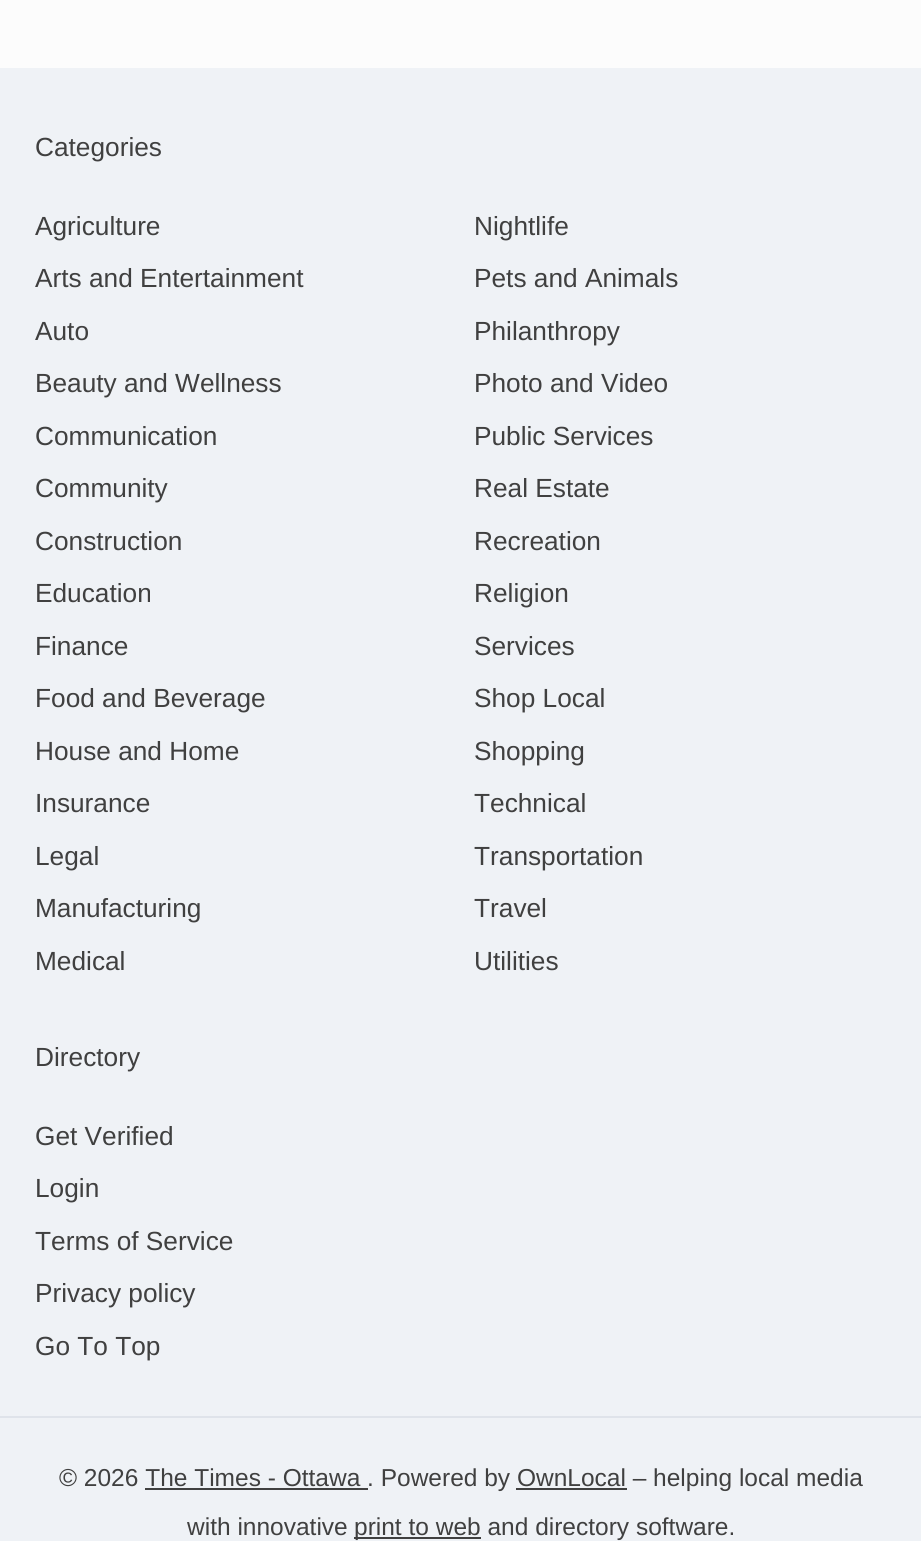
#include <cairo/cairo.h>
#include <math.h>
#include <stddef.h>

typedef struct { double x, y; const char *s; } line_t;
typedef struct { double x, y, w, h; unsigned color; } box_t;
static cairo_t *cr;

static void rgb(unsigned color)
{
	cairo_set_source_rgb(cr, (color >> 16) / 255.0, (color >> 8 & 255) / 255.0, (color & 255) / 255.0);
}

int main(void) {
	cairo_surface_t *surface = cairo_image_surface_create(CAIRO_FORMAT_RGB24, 921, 1541);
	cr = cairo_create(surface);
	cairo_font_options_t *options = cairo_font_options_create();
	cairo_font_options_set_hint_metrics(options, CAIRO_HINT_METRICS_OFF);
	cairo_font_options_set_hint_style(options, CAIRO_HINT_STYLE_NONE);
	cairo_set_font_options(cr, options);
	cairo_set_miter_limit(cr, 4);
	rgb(0xfcfcfc);
	cairo_paint(cr);
	{
		static const box_t items[] = {
			{0, 68, 921, 1473, 0xeff2f6},
			{0, 1416, 921, 2, 0xdfe3ea},
			{145, 1488, 223, 2, 0x404040},
			{516, 1488, 111, 2, 0x404040},
			{354, 1537, 127, 2, 0x404040},
		};
		for (size_t i = 0; i < sizeof items / sizeof *items; i++) {
			rgb(items[i].color);
			cairo_rectangle(cr, items[i].x, items[i].y, items[i].w, items[i].h);
			cairo_fill(cr);
		}
	}
	cairo_select_font_face(cr, "Liberation Sans", CAIRO_FONT_SLANT_NORMAL, CAIRO_FONT_WEIGHT_NORMAL);
	cairo_set_font_size(cr, 26.25);
	{
		static const line_t items[] = {
			{35, 156, "Categories"},
			{35, 235, "Agriculture"},
			{474, 235, "Nightlife"},
			{35, 287, "Arts and Entertainment"},
			{474, 287, "Pets and Animals"},
			{35, 340, "Auto"},
			{474, 340, "Philanthropy"},
			{35, 392, "Beauty and Wellness"},
			{474, 392, "Photo and Video"},
			{35, 445, "Communication"},
			{474, 445, "Public Services"},
			{35, 497, "Community"},
			{474, 497, "Real Estate"},
			{35, 550, "Construction"},
			{474, 550, "Recreation"},
			{35, 602, "Education"},
			{474, 602, "Religion"},
			{35, 655, "Finance"},
			{474, 655, "Services"},
			{35, 707, "Food and Beverage"},
			{474, 707, "Shop Local"},
			{35, 760, "House and Home"},
			{474, 760, "Shopping"},
			{35, 812, "Insurance"},
			{474, 812, "Technical"},
			{35, 865, "Legal"},
			{474, 865, "Transportation"},
			{35, 917, "Manufacturing"},
			{474, 917, "Travel"},
			{35, 970, "Medical"},
			{474, 970, "Utilities"},
			{35, 1066, "Directory"},
			{35, 1145, "Get Verified"},
			{35, 1197, "Login"},
			{35, 1250, "Terms of Service"},
			{35, 1302, "Privacy policy"},
			{35, 1355, "Go To Top"},
		};
		for (size_t i = 0; i < sizeof items / sizeof *items; i++) {
			cairo_move_to(cr, items[i].x, items[i].y);
			cairo_show_text(cr, items[i].s);
		}
	}
	cairo_set_font_size(cr, 24.5);
	{
		static const line_t items[] = {
			{59, 1486, "© 2026 The Times - Ottawa . Powered by OwnLocal – helping local media"},
			{187, 1535, "with innovative"},
			{354, 1535, "print to web and directory software."},
		};
		for (size_t i = 0; i < sizeof items / sizeof *items; i++) {
			cairo_move_to(cr, items[i].x, items[i].y);
			cairo_show_text(cr, items[i].s);
		}
	}
	cairo_surface_write_to_png(surface, "page.png");
	cairo_font_options_destroy(options);
	cairo_destroy(cr);
	cairo_surface_destroy(surface);
	return 0;
}
